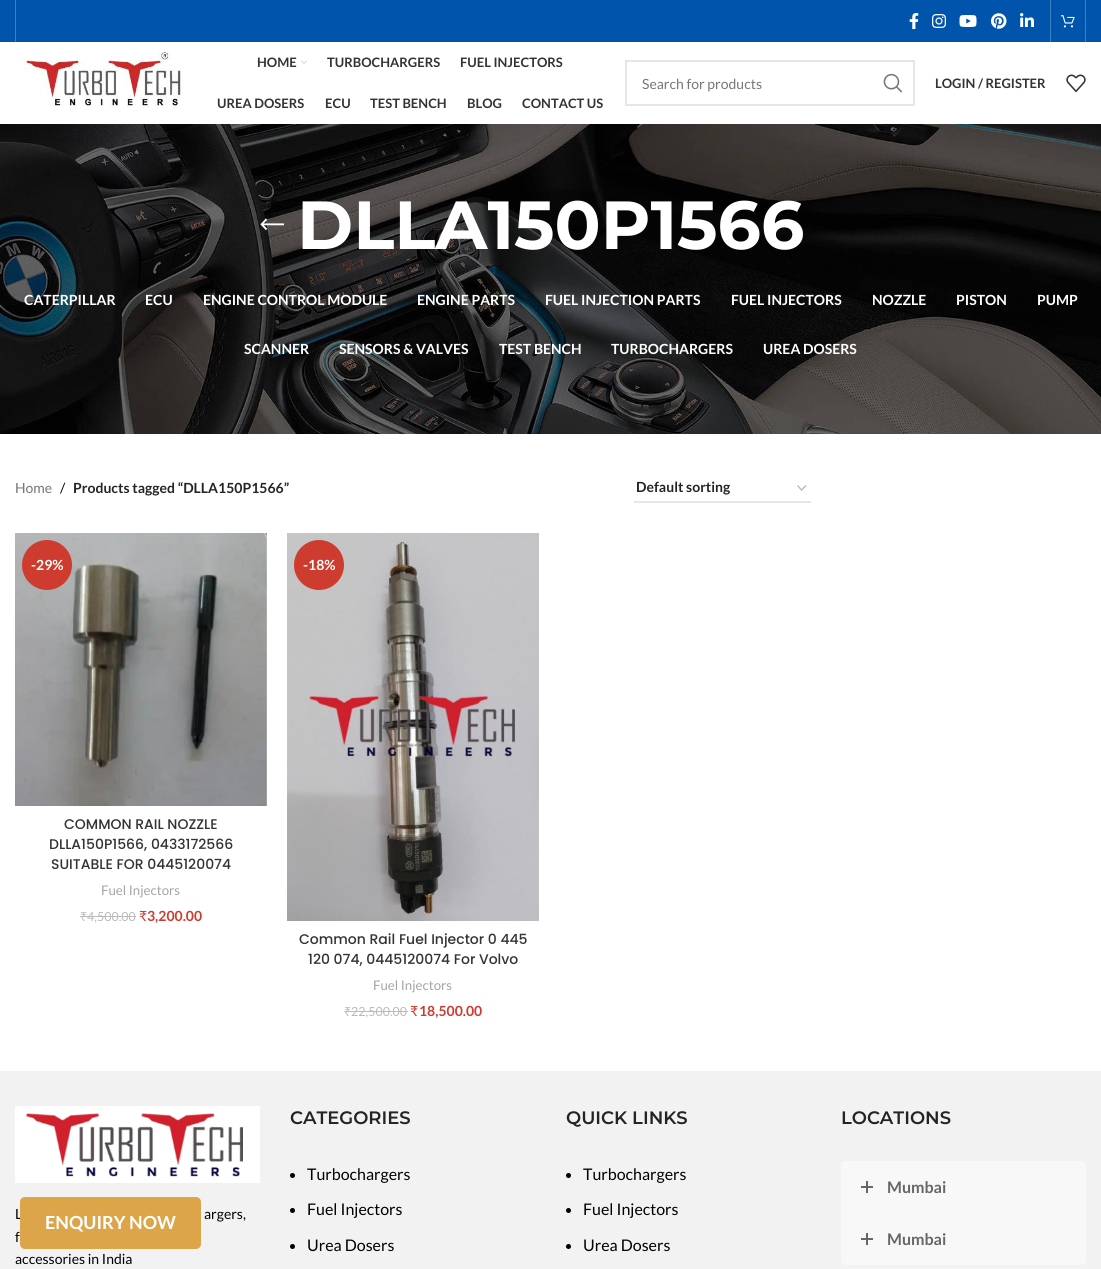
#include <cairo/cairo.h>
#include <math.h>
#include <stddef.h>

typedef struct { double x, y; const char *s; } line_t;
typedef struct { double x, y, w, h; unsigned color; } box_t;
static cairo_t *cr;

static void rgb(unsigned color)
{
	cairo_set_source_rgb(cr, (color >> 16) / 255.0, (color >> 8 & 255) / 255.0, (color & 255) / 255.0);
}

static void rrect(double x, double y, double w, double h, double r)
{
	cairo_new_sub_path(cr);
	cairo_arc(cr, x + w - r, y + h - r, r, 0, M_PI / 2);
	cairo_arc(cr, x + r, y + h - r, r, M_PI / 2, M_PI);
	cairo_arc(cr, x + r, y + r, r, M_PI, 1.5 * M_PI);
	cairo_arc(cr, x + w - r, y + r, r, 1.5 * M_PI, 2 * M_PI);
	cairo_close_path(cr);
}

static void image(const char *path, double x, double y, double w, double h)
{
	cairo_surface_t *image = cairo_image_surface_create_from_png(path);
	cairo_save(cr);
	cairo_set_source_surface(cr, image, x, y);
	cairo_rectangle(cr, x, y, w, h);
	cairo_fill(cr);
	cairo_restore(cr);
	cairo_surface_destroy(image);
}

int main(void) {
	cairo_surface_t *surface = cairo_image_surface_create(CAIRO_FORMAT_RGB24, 1101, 1269);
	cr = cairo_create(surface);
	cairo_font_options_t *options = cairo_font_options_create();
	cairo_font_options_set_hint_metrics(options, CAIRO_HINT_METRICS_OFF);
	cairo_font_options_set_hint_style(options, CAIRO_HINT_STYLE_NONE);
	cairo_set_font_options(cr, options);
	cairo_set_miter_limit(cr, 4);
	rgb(0xffffff);
	cairo_paint(cr);
	rgb(0x0054ac);
	cairo_rectangle(cr, 0, 0, 1101, 42);
	cairo_fill(cr);
	rgb(0x407fc1);
	cairo_rectangle(cr, 15, 0, 1, 42);
	cairo_fill(cr);
	image("img/1.png", 909, 13, 10, 16);
	image("img/2.png", 932, 14, 14, 14);
	image("img/3.png", 959, 15, 18, 12);
	image("img/4.png", 991, 13, 16, 16);
	image("img/5.png", 1020, 13, 14, 14);
	cairo_rectangle(cr, 1050, 0, 1, 42);
	cairo_fill(cr);
	image("img/6.png", 1061, 15, 14, 13);
	cairo_rectangle(cr, 1085, 0, 1, 42);
	cairo_fill(cr);
	image("img/7.png", 24, 51, 157, 58);
	image("img/8.png", 301, 60, 6, 4);
	cairo_rectangle(cr, 626, 61, 288, 44);
	rgb(0xe6e6e6);
	cairo_stroke(cr);
	image("img/9.png", 883, 73, 20, 20);
	image("img/10.png", 1066, 74, 20, 18);
	image("img/11.png", 0, 124, 1101, 310);
	image("img/12.png", 260, 218, 24, 13);
	cairo_new_path(cr);
	cairo_move_to(cr, 797.5, 485.5);
	cairo_line_to(cr, 801.5, 490);
	cairo_line_to(cr, 806, 485.5);
	rgb(0xbbbbbb);
	cairo_set_line_width(cr, 1.4);
	cairo_stroke(cr);
	rgb(0xe6e6e6);
	cairo_rectangle(cr, 634, 501, 177, 2);
	cairo_fill(cr);
	image("img/13.png", 15, 533, 252, 273);
	rgb(0xce3c2f);
	cairo_arc(cr, 47, 565, 25, 0, 2 * M_PI);
	cairo_fill(cr);
	rgb(0xbbbbbb);
	cairo_rectangle(cr, 80, 916, 7, 1);
	cairo_fill(cr);
	cairo_rectangle(cr, 87, 916, 49, 1);
	cairo_fill(cr);
	image("img/14.png", 287, 533, 252, 388);
	rgb(0xce3c2f);
	cairo_arc(cr, 319, 565, 25, 0, 2 * M_PI);
	cairo_fill(cr);
	{
		static const box_t items[] = {
			{344, 1011, 7, 1, 0xbbbbbb},
			{351, 1011, 57, 1, 0xbbbbbb},
			{0, 1071, 1101, 198, 0xf2f2f2},
		};
		for (size_t i = 0; i < sizeof items / sizeof *items; i++) {
			rgb(items[i].color);
			cairo_rectangle(cr, items[i].x, items[i].y, items[i].w, items[i].h);
			cairo_fill(cr);
		}
	}
	image("img/15.png", 15, 1106, 245, 77);
	rgb(0x000000);
	cairo_arc(cr, 292.5, 1175.5, 2.5, 0, 2 * M_PI);
	cairo_fill(cr);
	cairo_arc(cr, 292.5, 1210.5, 2.5, 0, 2 * M_PI);
	cairo_fill(cr);
	cairo_arc(cr, 292.5, 1246.5, 2.5, 0, 2 * M_PI);
	cairo_fill(cr);
	cairo_arc(cr, 568.5, 1175.5, 2.5, 0, 2 * M_PI);
	cairo_fill(cr);
	cairo_arc(cr, 568.5, 1210.5, 2.5, 0, 2 * M_PI);
	cairo_fill(cr);
	cairo_arc(cr, 568.5, 1246.5, 2.5, 0, 2 * M_PI);
	cairo_fill(cr);
	rgb(0xf8f8f8);
	cairo_new_path(cr);
	cairo_move_to(cr, 846, 1161);
	cairo_line_to(cr, 1081, 1161);
	cairo_curve_to(cr, 1084, 1161, 1086, 1163, 1086, 1166);
	cairo_line_to(cr, 1086, 1213);
	cairo_line_to(cr, 841, 1213);
	cairo_line_to(cr, 841, 1166);
	cairo_curve_to(cr, 841, 1163, 843, 1161, 846, 1161);
	cairo_close_path(cr);
	cairo_fill(cr);
	rgb(0x666666);
	cairo_rectangle(cr, 861, 1186, 12, 2);
	cairo_fill(cr);
	cairo_rectangle(cr, 866, 1181, 2, 12);
	cairo_fill(cr);
	rgb(0xf8f8f8);
	cairo_new_path(cr);
	cairo_move_to(cr, 841, 1213);
	cairo_line_to(cr, 1086, 1213);
	cairo_line_to(cr, 1086, 1260);
	cairo_curve_to(cr, 1086, 1263, 1084, 1265, 1081, 1265);
	cairo_line_to(cr, 846, 1265);
	cairo_curve_to(cr, 843, 1265, 841, 1263, 841, 1260);
	cairo_close_path(cr);
	cairo_fill(cr);
	rgb(0x666666);
	cairo_rectangle(cr, 861, 1238, 12, 2);
	cairo_fill(cr);
	cairo_rectangle(cr, 866, 1233, 2, 12);
	cairo_fill(cr);
	cairo_select_font_face(cr, "Lato", CAIRO_FONT_SLANT_NORMAL, CAIRO_FONT_WEIGHT_BOLD);
	cairo_set_font_size(cr, 13);
	rgb(0x333333);
	{
		static const line_t items[] = {
			{257, 67, "HOME"},
			{327, 67, "TURBOCHARGERS"},
			{460, 67, "FUEL INJECTORS"},
			{217, 108, "UREA DOSERS"},
			{325, 108, "ECU"},
			{370, 108, "TEST BENCH"},
			{467, 108, "BLOG"},
			{522, 108, "CONTACT US"},
		};
		for (size_t i = 0; i < sizeof items / sizeof *items; i++) {
			cairo_move_to(cr, items[i].x, items[i].y);
			cairo_show_text(cr, items[i].s);
		}
	}
	cairo_select_font_face(cr, "Lato", CAIRO_FONT_SLANT_NORMAL, CAIRO_FONT_WEIGHT_NORMAL);
	cairo_set_font_size(cr, 14);
	rgb(0x767676);
	cairo_move_to(cr, 642, 89);
	cairo_show_text(cr, "Search for products");
	cairo_select_font_face(cr, "Lato", CAIRO_FONT_SLANT_NORMAL, CAIRO_FONT_WEIGHT_BOLD);
	cairo_set_font_size(cr, 13);
	rgb(0x333333);
	cairo_move_to(cr, 935, 88);
	cairo_show_text(cr, "LOGIN / REGISTER");
	cairo_select_font_face(cr, "Montserrat", CAIRO_FONT_SLANT_NORMAL, CAIRO_FONT_WEIGHT_BOLD);
	cairo_set_font_size(cr, 68);
	rgb(0xffffff);
	cairo_move_to(cr, 297, 249);
	cairo_show_text(cr, "DLLA150P1566");
	cairo_select_font_face(cr, "Lato", CAIRO_FONT_SLANT_NORMAL, CAIRO_FONT_WEIGHT_BOLD);
	cairo_set_font_size(cr, 14);
	{
		static const line_t items[] = {
			{24, 305, "CATERPILLAR"},
			{145, 305, "ECU"},
			{203, 305, "ENGINE CONTROL MODULE"},
			{417, 305, "ENGINE PARTS"},
			{545, 305, "FUEL INJECTION PARTS"},
			{731, 305, "FUEL INJECTORS"},
			{872, 305, "NOZZLE"},
			{956, 305, "PISTON"},
			{1037, 305, "PUMP"},
			{244, 354, "SCANNER"},
			{339, 354, "SENSORS & VALVES"},
			{499, 354, "TEST BENCH"},
			{611, 354, "TURBOCHARGERS"},
			{763, 354, "UREA DOSERS"},
		};
		for (size_t i = 0; i < sizeof items / sizeof *items; i++) {
			cairo_move_to(cr, items[i].x, items[i].y);
			cairo_show_text(cr, items[i].s);
		}
	}
	cairo_select_font_face(cr, "Lato", CAIRO_FONT_SLANT_NORMAL, CAIRO_FONT_WEIGHT_NORMAL);
	rgb(0x767676);
	cairo_move_to(cr, 15, 493);
	cairo_show_text(cr, "Home");
	rgb(0x000000);
	cairo_move_to(cr, 60, 493);
	cairo_show_text(cr, "/");
	cairo_select_font_face(cr, "Lato", CAIRO_FONT_SLANT_NORMAL, CAIRO_FONT_WEIGHT_BOLD);
	rgb(0x242424);
	cairo_move_to(cr, 73, 493);
	cairo_show_text(cr, "Products tagged “DLLA150P1566”");
	cairo_move_to(cr, 636, 492);
	cairo_show_text(cr, "Default sorting");
	rgb(0xffffff);
	cairo_move_to(cr, 31, 570);
	cairo_show_text(cr, "-29%");
	cairo_select_font_face(cr, "Poppins Medium", CAIRO_FONT_SLANT_NORMAL, CAIRO_FONT_WEIGHT_NORMAL);
	rgb(0x333333);
	{
		static const line_t items[] = {
			{64, 829, "COMMON RAIL NOZZLE"},
			{49, 849, "DLLA150P1566, 0433172566"},
			{51, 869, "SUITABLE FOR 0445120074"},
		};
		for (size_t i = 0; i < sizeof items / sizeof *items; i++) {
			cairo_move_to(cr, items[i].x, items[i].y);
			cairo_show_text(cr, items[i].s);
		}
	}
	cairo_select_font_face(cr, "Lato", CAIRO_FONT_SLANT_NORMAL, CAIRO_FONT_WEIGHT_NORMAL);
	cairo_set_font_size(cr, 13.25);
	rgb(0xa5a5a5);
	cairo_move_to(cr, 101, 895);
	cairo_show_text(cr, "Fuel Injectors");
	cairo_select_font_face(cr, "Noto Sans", CAIRO_FONT_SLANT_NORMAL, CAIRO_FONT_WEIGHT_NORMAL);
	cairo_set_font_size(cr, 12.5);
	rgb(0xbbbbbb);
	cairo_move_to(cr, 80, 921);
	cairo_show_text(cr, "₹");
	cairo_select_font_face(cr, "Lato", CAIRO_FONT_SLANT_NORMAL, CAIRO_FONT_WEIGHT_NORMAL);
	cairo_move_to(cr, 87, 921);
	cairo_show_text(cr, "4,500.00");
	cairo_select_font_face(cr, "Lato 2", CAIRO_FONT_SLANT_NORMAL, CAIRO_FONT_WEIGHT_NORMAL);
	cairo_set_font_size(cr, 14);
	rgb(0xce3c2f);
	cairo_move_to(cr, 139, 921);
	cairo_show_text(cr, "₹");
	cairo_select_font_face(cr, "Lato", CAIRO_FONT_SLANT_NORMAL, CAIRO_FONT_WEIGHT_BOLD);
	cairo_move_to(cr, 147, 921);
	cairo_show_text(cr, "3,200.00");
	rgb(0xffffff);
	cairo_move_to(cr, 303, 570);
	cairo_show_text(cr, "-18%");
	cairo_select_font_face(cr, "Poppins Medium", CAIRO_FONT_SLANT_NORMAL, CAIRO_FONT_WEIGHT_NORMAL);
	rgb(0x333333);
	cairo_move_to(cr, 299, 944);
	cairo_show_text(cr, "Common Rail Fuel Injector 0 445");
	cairo_move_to(cr, 308, 964);
	cairo_show_text(cr, "120 074, 0445120074 For Volvo");
	cairo_select_font_face(cr, "Lato", CAIRO_FONT_SLANT_NORMAL, CAIRO_FONT_WEIGHT_NORMAL);
	cairo_set_font_size(cr, 13.25);
	rgb(0xa5a5a5);
	cairo_move_to(cr, 373, 990);
	cairo_show_text(cr, "Fuel Injectors");
	cairo_select_font_face(cr, "Noto Sans", CAIRO_FONT_SLANT_NORMAL, CAIRO_FONT_WEIGHT_NORMAL);
	cairo_set_font_size(cr, 12.5);
	rgb(0xbbbbbb);
	cairo_move_to(cr, 344, 1016);
	cairo_show_text(cr, "₹");
	cairo_select_font_face(cr, "Lato", CAIRO_FONT_SLANT_NORMAL, CAIRO_FONT_WEIGHT_NORMAL);
	cairo_move_to(cr, 351, 1016);
	cairo_show_text(cr, "22,500.00");
	cairo_select_font_face(cr, "Lato 2", CAIRO_FONT_SLANT_NORMAL, CAIRO_FONT_WEIGHT_NORMAL);
	cairo_set_font_size(cr, 14);
	rgb(0xce3c2f);
	cairo_move_to(cr, 410, 1016);
	cairo_show_text(cr, "₹");
	cairo_select_font_face(cr, "Lato", CAIRO_FONT_SLANT_NORMAL, CAIRO_FONT_WEIGHT_BOLD);
	cairo_move_to(cr, 419, 1016);
	cairo_show_text(cr, "18,500.00");
	cairo_select_font_face(cr, "Lato", CAIRO_FONT_SLANT_NORMAL, CAIRO_FONT_WEIGHT_NORMAL);
	rgb(0x000000);
	{
		static const line_t items[] = {
			{15, 1219, "L"},
			{204, 1219, "argers,"},
			{15, 1242, "f"},
			{15, 1264, "accessories in India"},
		};
		for (size_t i = 0; i < sizeof items / sizeof *items; i++) {
			cairo_move_to(cr, items[i].x, items[i].y);
			cairo_show_text(cr, items[i].s);
		}
	}
	cairo_select_font_face(cr, "Montserrat SemiBold", CAIRO_FONT_SLANT_NORMAL, CAIRO_FONT_WEIGHT_NORMAL);
	cairo_set_font_size(cr, 18);
	rgb(0x242424);
	cairo_move_to(cr, 290, 1124);
	cairo_show_text(cr, "CATEGORIES");
	cairo_select_font_face(cr, "Lato", CAIRO_FONT_SLANT_NORMAL, CAIRO_FONT_WEIGHT_NORMAL);
	cairo_set_font_size(cr, 16);
	rgb(0x000000);
	{
		static const line_t items[] = {
			{307, 1180, "Turbochargers"},
			{307, 1215, "Fuel Injectors"},
			{307, 1251, "Urea Dosers"},
		};
		for (size_t i = 0; i < sizeof items / sizeof *items; i++) {
			cairo_move_to(cr, items[i].x, items[i].y);
			cairo_show_text(cr, items[i].s);
		}
	}
	cairo_select_font_face(cr, "Montserrat SemiBold", CAIRO_FONT_SLANT_NORMAL, CAIRO_FONT_WEIGHT_NORMAL);
	cairo_set_font_size(cr, 18);
	rgb(0x242424);
	cairo_move_to(cr, 566, 1124);
	cairo_show_text(cr, "QUICK LINKS");
	cairo_select_font_face(cr, "Lato", CAIRO_FONT_SLANT_NORMAL, CAIRO_FONT_WEIGHT_NORMAL);
	cairo_set_font_size(cr, 16);
	rgb(0x000000);
	{
		static const line_t items[] = {
			{583, 1180, "Turbochargers"},
			{583, 1215, "Fuel Injectors"},
			{583, 1251, "Urea Dosers"},
		};
		for (size_t i = 0; i < sizeof items / sizeof *items; i++) {
			cairo_move_to(cr, items[i].x, items[i].y);
			cairo_show_text(cr, items[i].s);
		}
	}
	cairo_select_font_face(cr, "Montserrat SemiBold", CAIRO_FONT_SLANT_NORMAL, CAIRO_FONT_WEIGHT_NORMAL);
	cairo_set_font_size(cr, 18);
	rgb(0x242424);
	cairo_move_to(cr, 841, 1124);
	cairo_show_text(cr, "LOCATIONS");
	cairo_select_font_face(cr, "Lato", CAIRO_FONT_SLANT_NORMAL, CAIRO_FONT_WEIGHT_BOLD);
	cairo_set_font_size(cr, 16);
	rgb(0x666666);
	cairo_move_to(cr, 887, 1193);
	cairo_show_text(cr, "Mumbai");
	cairo_move_to(cr, 887, 1245);
	cairo_show_text(cr, "Mumbai");
	rgb(0xdca54a);
	rrect(20, 1197, 181, 52, 5);
	cairo_fill(cr);
	cairo_set_font_size(cr, 18);
	rgb(0xffffff);
	cairo_move_to(cr, 45, 1229);
	cairo_show_text(cr, "ENQUIRY NOW");
	cairo_surface_write_to_png(surface, "page.png");
	cairo_font_options_destroy(options);
	cairo_destroy(cr);
	cairo_surface_destroy(surface);
	return 0;
}
